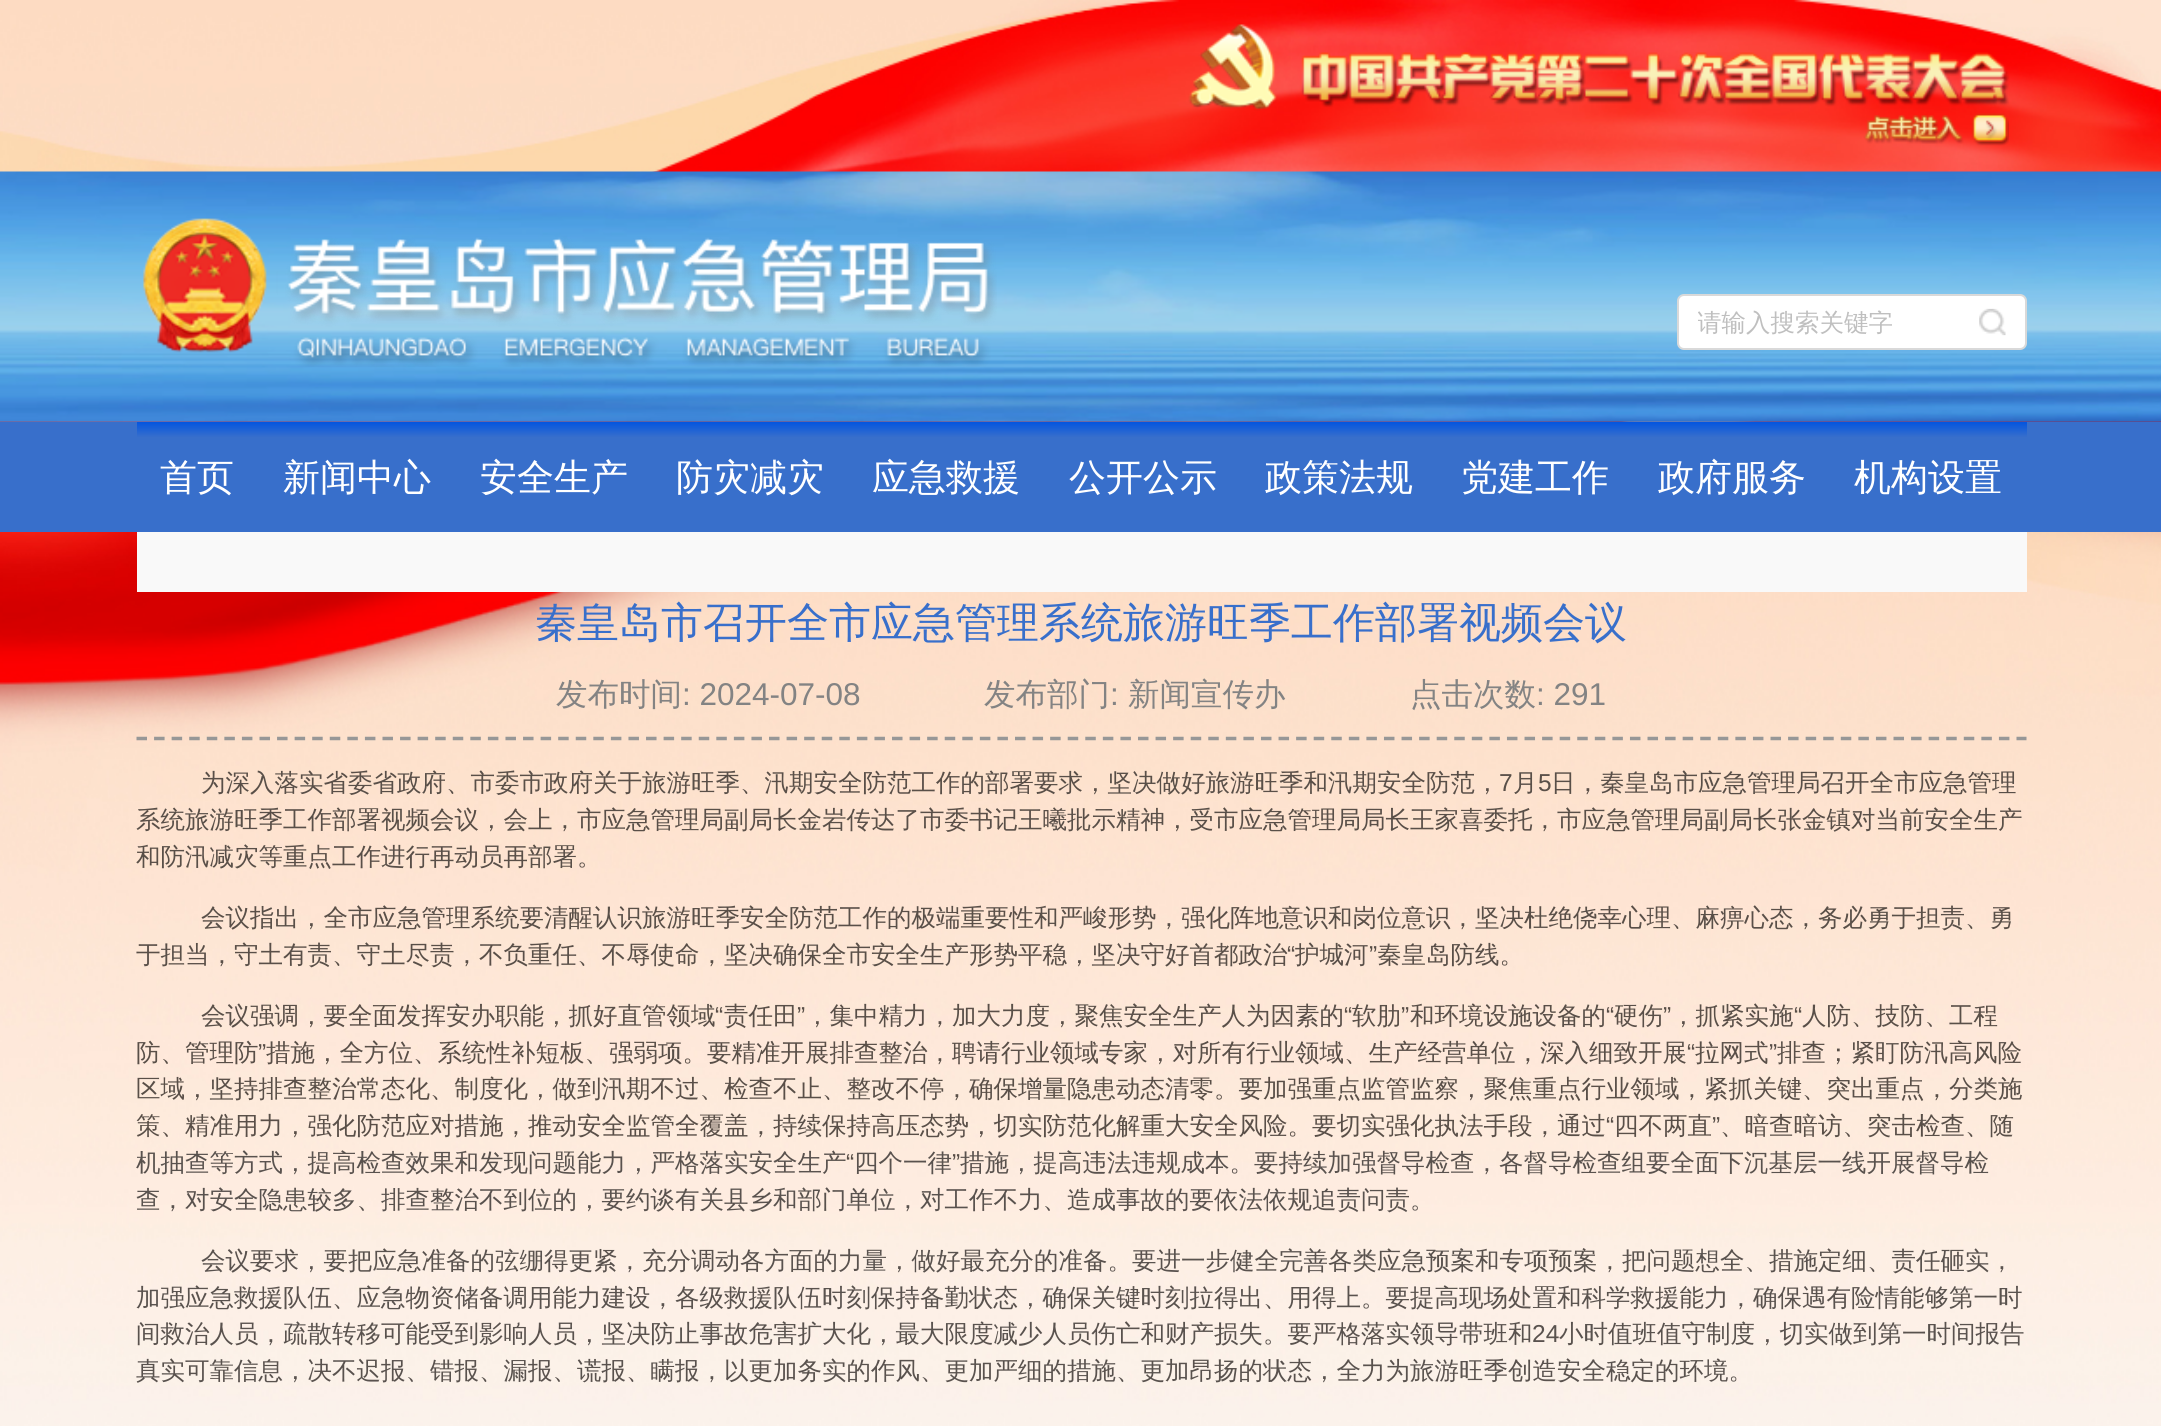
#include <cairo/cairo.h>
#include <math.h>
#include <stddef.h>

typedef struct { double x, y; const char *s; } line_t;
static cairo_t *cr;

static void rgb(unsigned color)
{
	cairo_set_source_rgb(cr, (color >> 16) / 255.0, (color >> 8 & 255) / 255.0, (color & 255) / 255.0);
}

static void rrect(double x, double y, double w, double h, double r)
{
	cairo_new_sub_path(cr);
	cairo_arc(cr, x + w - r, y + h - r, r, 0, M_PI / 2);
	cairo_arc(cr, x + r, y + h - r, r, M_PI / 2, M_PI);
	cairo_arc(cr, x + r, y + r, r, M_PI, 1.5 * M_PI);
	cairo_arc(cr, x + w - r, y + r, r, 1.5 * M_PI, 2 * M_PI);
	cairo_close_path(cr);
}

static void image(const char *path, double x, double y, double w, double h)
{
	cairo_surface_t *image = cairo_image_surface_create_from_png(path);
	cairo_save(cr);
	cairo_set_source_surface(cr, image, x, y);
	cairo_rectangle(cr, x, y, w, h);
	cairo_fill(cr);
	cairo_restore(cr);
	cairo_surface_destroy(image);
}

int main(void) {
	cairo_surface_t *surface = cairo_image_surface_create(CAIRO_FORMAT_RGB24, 2161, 1426);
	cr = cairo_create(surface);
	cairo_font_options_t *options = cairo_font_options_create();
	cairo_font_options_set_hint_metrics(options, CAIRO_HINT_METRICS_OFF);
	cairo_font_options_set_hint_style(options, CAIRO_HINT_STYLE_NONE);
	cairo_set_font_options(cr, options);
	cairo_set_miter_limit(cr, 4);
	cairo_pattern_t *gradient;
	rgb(0xffffff);
	cairo_paint(cr);
	image("img/1.png", 0, 0, 2161, 1426);
	image("img/2.png", 1188, 24, 821, 122);
	image("img/3.png", 0, 171, 2161, 251);
	image("img/4.png", 143, 218, 854, 149);
	rgb(0xffffff);
	rrect(1678, 295, 348, 54, 6);
	cairo_fill_preserve(cr);
	rgb(0xd9d9d9);
	cairo_stroke(cr);
	image("img/5.png", 1979, 308, 27, 28);
	rgb(0x386fcb);
	cairo_rectangle(cr, 0, 422, 2161, 110);
	cairo_fill(cr);
	gradient = cairo_pattern_create_linear(198, 422, 198, 532);
	cairo_pattern_add_color_stop_rgba(gradient, 0, 0.012, 0.333, 0.878, 1);
	cairo_pattern_add_color_stop_rgba(gradient, 0.14, 0.22, 0.435, 0.796, 1);
	cairo_pattern_add_color_stop_rgba(gradient, 1, 0.22, 0.435, 0.796, 1);
	cairo_set_source(cr, gradient);
	cairo_pattern_destroy(gradient);
	cairo_rectangle(cr, 137, 422, 122, 15);
	cairo_fill(cr);
	gradient = cairo_pattern_create_linear(357, 422, 357, 532);
	cairo_pattern_add_color_stop_rgba(gradient, 0, 0.012, 0.333, 0.878, 1);
	cairo_pattern_add_color_stop_rgba(gradient, 0.14, 0.22, 0.435, 0.796, 1);
	cairo_pattern_add_color_stop_rgba(gradient, 1, 0.22, 0.435, 0.796, 1);
	cairo_set_source(cr, gradient);
	cairo_pattern_destroy(gradient);
	cairo_rectangle(cr, 259, 422, 196, 15);
	cairo_fill(cr);
	gradient = cairo_pattern_create_linear(553, 422, 553, 532);
	cairo_pattern_add_color_stop_rgba(gradient, 0, 0.012, 0.333, 0.878, 1);
	cairo_pattern_add_color_stop_rgba(gradient, 0.14, 0.22, 0.435, 0.796, 1);
	cairo_pattern_add_color_stop_rgba(gradient, 1, 0.22, 0.435, 0.796, 1);
	cairo_set_source(cr, gradient);
	cairo_pattern_destroy(gradient);
	cairo_rectangle(cr, 455, 422, 196, 15);
	cairo_fill(cr);
	gradient = cairo_pattern_create_linear(749, 422, 749, 532);
	cairo_pattern_add_color_stop_rgba(gradient, 0, 0.012, 0.333, 0.878, 1);
	cairo_pattern_add_color_stop_rgba(gradient, 0.14, 0.22, 0.435, 0.796, 1);
	cairo_pattern_add_color_stop_rgba(gradient, 1, 0.22, 0.435, 0.796, 1);
	cairo_set_source(cr, gradient);
	cairo_pattern_destroy(gradient);
	cairo_rectangle(cr, 651, 422, 196, 15);
	cairo_fill(cr);
	gradient = cairo_pattern_create_linear(946, 422, 946, 532);
	cairo_pattern_add_color_stop_rgba(gradient, 0, 0.012, 0.333, 0.878, 1);
	cairo_pattern_add_color_stop_rgba(gradient, 0.14, 0.22, 0.435, 0.796, 1);
	cairo_pattern_add_color_stop_rgba(gradient, 1, 0.22, 0.435, 0.796, 1);
	cairo_set_source(cr, gradient);
	cairo_pattern_destroy(gradient);
	cairo_rectangle(cr, 847, 422, 198, 15);
	cairo_fill(cr);
	gradient = cairo_pattern_create_linear(1143, 422, 1143, 532);
	cairo_pattern_add_color_stop_rgba(gradient, 0, 0.012, 0.333, 0.878, 1);
	cairo_pattern_add_color_stop_rgba(gradient, 0.14, 0.22, 0.435, 0.796, 1);
	cairo_pattern_add_color_stop_rgba(gradient, 1, 0.22, 0.435, 0.796, 1);
	cairo_set_source(cr, gradient);
	cairo_pattern_destroy(gradient);
	cairo_rectangle(cr, 1045, 422, 196, 15);
	cairo_fill(cr);
	gradient = cairo_pattern_create_linear(1339, 422, 1339, 532);
	cairo_pattern_add_color_stop_rgba(gradient, 0, 0.012, 0.333, 0.878, 1);
	cairo_pattern_add_color_stop_rgba(gradient, 0.14, 0.22, 0.435, 0.796, 1);
	cairo_pattern_add_color_stop_rgba(gradient, 1, 0.22, 0.435, 0.796, 1);
	cairo_set_source(cr, gradient);
	cairo_pattern_destroy(gradient);
	cairo_rectangle(cr, 1241, 422, 196, 15);
	cairo_fill(cr);
	gradient = cairo_pattern_create_linear(1535, 422, 1535, 532);
	cairo_pattern_add_color_stop_rgba(gradient, 0, 0.012, 0.333, 0.878, 1);
	cairo_pattern_add_color_stop_rgba(gradient, 0.14, 0.22, 0.435, 0.796, 1);
	cairo_pattern_add_color_stop_rgba(gradient, 1, 0.22, 0.435, 0.796, 1);
	cairo_set_source(cr, gradient);
	cairo_pattern_destroy(gradient);
	cairo_rectangle(cr, 1437, 422, 196, 15);
	cairo_fill(cr);
	gradient = cairo_pattern_create_linear(1731, 422, 1731, 532);
	cairo_pattern_add_color_stop_rgba(gradient, 0, 0.012, 0.333, 0.878, 1);
	cairo_pattern_add_color_stop_rgba(gradient, 0.14, 0.22, 0.435, 0.796, 1);
	cairo_pattern_add_color_stop_rgba(gradient, 1, 0.22, 0.435, 0.796, 1);
	cairo_set_source(cr, gradient);
	cairo_pattern_destroy(gradient);
	cairo_rectangle(cr, 1633, 422, 196, 15);
	cairo_fill(cr);
	gradient = cairo_pattern_create_linear(1928, 422, 1928, 532);
	cairo_pattern_add_color_stop_rgba(gradient, 0, 0.012, 0.333, 0.878, 1);
	cairo_pattern_add_color_stop_rgba(gradient, 0.14, 0.22, 0.435, 0.796, 1);
	cairo_pattern_add_color_stop_rgba(gradient, 1, 0.22, 0.435, 0.796, 1);
	cairo_set_source(cr, gradient);
	cairo_pattern_destroy(gradient);
	cairo_rectangle(cr, 1829, 422, 198, 15);
	cairo_fill(cr);
	rgb(0xf9f9f9);
	cairo_rectangle(cr, 137, 532, 1890, 60);
	cairo_fill(cr);
	cairo_new_path(cr);
	cairo_move_to(cr, 136.5, 738.5);
	cairo_line_to(cr, 2026.5, 738.5);
	rgb(0x979797);
	cairo_set_line_width(cr, 3.5);
	cairo_set_dash(cr, (double[]){10.5, 7.07}, 2, 0);
	cairo_stroke(cr);
	cairo_save(cr);
	cairo_rectangle(cr, 1698, 308, 274, 32);
	cairo_clip(cr);
	cairo_select_font_face(cr, "WenQuanYi Zen Hei Medium", CAIRO_FONT_SLANT_NORMAL, CAIRO_FONT_WEIGHT_NORMAL);
	cairo_set_font_size(cr, 24.5);
	rgb(0xbfbfbf);
	cairo_move_to(cr, 1697, 331);
	cairo_show_text(cr, "请输入搜索关键字");
	cairo_restore(cr);
	cairo_select_font_face(cr, "WenQuanYi Zen Hei Medium", CAIRO_FONT_SLANT_NORMAL, CAIRO_FONT_WEIGHT_NORMAL);
	cairo_set_font_size(cr, 37);
	rgb(0xffffff);
	{
		static const line_t items[] = {
			{160, 490, "首页"},
			{283, 490, "新闻中心"},
			{480, 490, "安全生产"},
			{676, 490, "防灾减灾"},
			{872, 490, "应急救援"},
			{1069, 490, "公开公示"},
			{1265, 490, "政策法规"},
			{1461, 490, "党建工作"},
			{1658, 490, "政府服务"},
			{1854, 490, "机构设置"},
		};
		for (size_t i = 0; i < sizeof items / sizeof *items; i++) {
			cairo_move_to(cr, items[i].x, items[i].y);
			cairo_show_text(cr, items[i].s);
		}
	}
	cairo_set_font_size(cr, 42);
	rgb(0x386fcb);
	cairo_move_to(cr, 535, 637);
	cairo_show_text(cr, "秦皇岛市召开全市应急管理系统旅游旺季工作部署视频会议");
	cairo_set_font_size(cr, 31.5);
	rgb(0x838383);
	cairo_move_to(cr, 556, 705);
	cairo_show_text(cr, "发布时间");
	cairo_select_font_face(cr, "Liberation Sans", CAIRO_FONT_SLANT_NORMAL, CAIRO_FONT_WEIGHT_NORMAL);
	cairo_move_to(cr, 682, 705);
	cairo_show_text(cr, ": 2024-07-08");
	cairo_select_font_face(cr, "WenQuanYi Zen Hei Medium", CAIRO_FONT_SLANT_NORMAL, CAIRO_FONT_WEIGHT_NORMAL);
	cairo_move_to(cr, 984, 705);
	cairo_show_text(cr, "发布部门");
	cairo_select_font_face(cr, "Liberation Sans", CAIRO_FONT_SLANT_NORMAL, CAIRO_FONT_WEIGHT_NORMAL);
	cairo_move_to(cr, 1110, 705);
	cairo_show_text(cr, ":");
	cairo_select_font_face(cr, "WenQuanYi Zen Hei Medium", CAIRO_FONT_SLANT_NORMAL, CAIRO_FONT_WEIGHT_NORMAL);
	cairo_move_to(cr, 1128, 705);
	cairo_show_text(cr, "新闻宣传办");
	cairo_move_to(cr, 1410, 705);
	cairo_show_text(cr, "点击次数");
	cairo_select_font_face(cr, "Liberation Sans", CAIRO_FONT_SLANT_NORMAL, CAIRO_FONT_WEIGHT_NORMAL);
	cairo_move_to(cr, 1536, 705);
	cairo_show_text(cr, ": 291");
	cairo_select_font_face(cr, "WenQuanYi Zen Hei Medium", CAIRO_FONT_SLANT_NORMAL, CAIRO_FONT_WEIGHT_NORMAL);
	cairo_set_font_size(cr, 24.5);
	rgb(0x594f48);
	cairo_move_to(cr, 201, 791);
	cairo_show_text(cr, "为深入落实省委省政府、市委市政府关于旅游旺季、汛期安全防范工作的部署要求，坚决做好旅游旺季和汛期安全防范，");
	cairo_select_font_face(cr, "Liberation Sans", CAIRO_FONT_SLANT_NORMAL, CAIRO_FONT_WEIGHT_NORMAL);
	cairo_move_to(cr, 1499, 791);
	cairo_show_text(cr, "7");
	cairo_select_font_face(cr, "WenQuanYi Zen Hei Medium", CAIRO_FONT_SLANT_NORMAL, CAIRO_FONT_WEIGHT_NORMAL);
	cairo_move_to(cr, 1513, 791);
	cairo_show_text(cr, "月");
	cairo_select_font_face(cr, "Liberation Sans", CAIRO_FONT_SLANT_NORMAL, CAIRO_FONT_WEIGHT_NORMAL);
	cairo_move_to(cr, 1538, 791);
	cairo_show_text(cr, "5");
	cairo_select_font_face(cr, "WenQuanYi Zen Hei Medium", CAIRO_FONT_SLANT_NORMAL, CAIRO_FONT_WEIGHT_NORMAL);
	{
		static const line_t items[] = {
			{1551, 791, "日，秦皇岛市应急管理局召开全市应急管理"},
			{136, 828, "系统旅游旺季工作部署视频会议，会上，市应急管理局副局长金岩传达了市委书记王曦批示精神，受市应急管理局局长王家喜委托，市应急管理局副局长张金镇对当前安全生产"},
			{136, 865, "和防汛减灾等重点工作进行再动员再部署。"},
			{201, 926, "会议指出，全市应急管理系统要清醒认识旅游旺季安全防范工作的极端重要性和严峻形势，强化阵地意识和岗位意识，坚决杜绝侥幸心理、麻痹心态，务必勇于担责、勇"},
			{136, 963, "于担当，守土有责、守土尽责，不负重任、不辱使命，坚决确保全市安全生产形势平稳，坚决守好首都政治"},
		};
		for (size_t i = 0; i < sizeof items / sizeof *items; i++) {
			cairo_move_to(cr, items[i].x, items[i].y);
			cairo_show_text(cr, items[i].s);
		}
	}
	cairo_select_font_face(cr, "Liberation Sans", CAIRO_FONT_SLANT_NORMAL, CAIRO_FONT_WEIGHT_NORMAL);
	cairo_move_to(cr, 1287, 963);
	cairo_show_text(cr, "“");
	cairo_select_font_face(cr, "WenQuanYi Zen Hei Medium", CAIRO_FONT_SLANT_NORMAL, CAIRO_FONT_WEIGHT_NORMAL);
	cairo_move_to(cr, 1295, 963);
	cairo_show_text(cr, "护城河");
	cairo_select_font_face(cr, "Liberation Sans", CAIRO_FONT_SLANT_NORMAL, CAIRO_FONT_WEIGHT_NORMAL);
	cairo_move_to(cr, 1369, 963);
	cairo_show_text(cr, "”");
	cairo_select_font_face(cr, "WenQuanYi Zen Hei Medium", CAIRO_FONT_SLANT_NORMAL, CAIRO_FONT_WEIGHT_NORMAL);
	cairo_move_to(cr, 1377, 963);
	cairo_show_text(cr, "秦皇岛防线。");
	cairo_move_to(cr, 201, 1024);
	cairo_show_text(cr, "会议强调，要全面发挥安办职能，抓好直管领域");
	cairo_select_font_face(cr, "Liberation Sans", CAIRO_FONT_SLANT_NORMAL, CAIRO_FONT_WEIGHT_NORMAL);
	cairo_move_to(cr, 715, 1024);
	cairo_show_text(cr, "“");
	cairo_select_font_face(cr, "WenQuanYi Zen Hei Medium", CAIRO_FONT_SLANT_NORMAL, CAIRO_FONT_WEIGHT_NORMAL);
	cairo_move_to(cr, 724, 1024);
	cairo_show_text(cr, "责任田");
	cairo_select_font_face(cr, "Liberation Sans", CAIRO_FONT_SLANT_NORMAL, CAIRO_FONT_WEIGHT_NORMAL);
	cairo_move_to(cr, 797, 1024);
	cairo_show_text(cr, "”");
	cairo_select_font_face(cr, "WenQuanYi Zen Hei Medium", CAIRO_FONT_SLANT_NORMAL, CAIRO_FONT_WEIGHT_NORMAL);
	cairo_move_to(cr, 805, 1024);
	cairo_show_text(cr, "，集中精力，加大力度，聚焦安全生产人为因素的");
	cairo_select_font_face(cr, "Liberation Sans", CAIRO_FONT_SLANT_NORMAL, CAIRO_FONT_WEIGHT_NORMAL);
	cairo_move_to(cr, 1344, 1024);
	cairo_show_text(cr, "“");
	cairo_select_font_face(cr, "WenQuanYi Zen Hei Medium", CAIRO_FONT_SLANT_NORMAL, CAIRO_FONT_WEIGHT_NORMAL);
	cairo_move_to(cr, 1352, 1024);
	cairo_show_text(cr, "软肋");
	cairo_select_font_face(cr, "Liberation Sans", CAIRO_FONT_SLANT_NORMAL, CAIRO_FONT_WEIGHT_NORMAL);
	cairo_move_to(cr, 1401, 1024);
	cairo_show_text(cr, "”");
	cairo_select_font_face(cr, "WenQuanYi Zen Hei Medium", CAIRO_FONT_SLANT_NORMAL, CAIRO_FONT_WEIGHT_NORMAL);
	cairo_move_to(cr, 1410, 1024);
	cairo_show_text(cr, "和环境设施设备的");
	cairo_select_font_face(cr, "Liberation Sans", CAIRO_FONT_SLANT_NORMAL, CAIRO_FONT_WEIGHT_NORMAL);
	cairo_move_to(cr, 1606, 1024);
	cairo_show_text(cr, "“");
	cairo_select_font_face(cr, "WenQuanYi Zen Hei Medium", CAIRO_FONT_SLANT_NORMAL, CAIRO_FONT_WEIGHT_NORMAL);
	cairo_move_to(cr, 1614, 1024);
	cairo_show_text(cr, "硬伤");
	cairo_select_font_face(cr, "Liberation Sans", CAIRO_FONT_SLANT_NORMAL, CAIRO_FONT_WEIGHT_NORMAL);
	cairo_move_to(cr, 1663, 1024);
	cairo_show_text(cr, "”");
	cairo_select_font_face(cr, "WenQuanYi Zen Hei Medium", CAIRO_FONT_SLANT_NORMAL, CAIRO_FONT_WEIGHT_NORMAL);
	cairo_move_to(cr, 1671, 1024);
	cairo_show_text(cr, "，抓紧实施");
	cairo_select_font_face(cr, "Liberation Sans", CAIRO_FONT_SLANT_NORMAL, CAIRO_FONT_WEIGHT_NORMAL);
	cairo_move_to(cr, 1794, 1024);
	cairo_show_text(cr, "“");
	cairo_select_font_face(cr, "WenQuanYi Zen Hei Medium", CAIRO_FONT_SLANT_NORMAL, CAIRO_FONT_WEIGHT_NORMAL);
	cairo_move_to(cr, 1802, 1024);
	cairo_show_text(cr, "人防、技防、工程");
	cairo_move_to(cr, 136, 1061);
	cairo_show_text(cr, "防、管理防");
	cairo_select_font_face(cr, "Liberation Sans", CAIRO_FONT_SLANT_NORMAL, CAIRO_FONT_WEIGHT_NORMAL);
	cairo_move_to(cr, 258, 1061);
	cairo_show_text(cr, "”");
	cairo_select_font_face(cr, "WenQuanYi Zen Hei Medium", CAIRO_FONT_SLANT_NORMAL, CAIRO_FONT_WEIGHT_NORMAL);
	cairo_move_to(cr, 266, 1061);
	cairo_show_text(cr, "措施，全方位、系统性补短板、强弱项。要精准开展排查整治，聘请行业领域专家，对所有行业领域、生产经营单位，深入细致开展");
	cairo_select_font_face(cr, "Liberation Sans", CAIRO_FONT_SLANT_NORMAL, CAIRO_FONT_WEIGHT_NORMAL);
	cairo_move_to(cr, 1687, 1061);
	cairo_show_text(cr, "“");
	cairo_select_font_face(cr, "WenQuanYi Zen Hei Medium", CAIRO_FONT_SLANT_NORMAL, CAIRO_FONT_WEIGHT_NORMAL);
	cairo_move_to(cr, 1695, 1061);
	cairo_show_text(cr, "拉网式");
	cairo_select_font_face(cr, "Liberation Sans", CAIRO_FONT_SLANT_NORMAL, CAIRO_FONT_WEIGHT_NORMAL);
	cairo_move_to(cr, 1769, 1061);
	cairo_show_text(cr, "”");
	cairo_select_font_face(cr, "WenQuanYi Zen Hei Medium", CAIRO_FONT_SLANT_NORMAL, CAIRO_FONT_WEIGHT_NORMAL);
	{
		static const line_t items[] = {
			{1777, 1061, "排查；紧盯防汛高风险"},
			{136, 1097, "区域，坚持排查整治常态化、制度化，做到汛期不过、检查不止、整改不停，确保增量隐患动态清零。要加强重点监管监察，聚焦重点行业领域，紧抓关键、突出重点，分类施"},
			{136, 1134, "策、精准用力，强化防范应对措施，推动安全监管全覆盖，持续保持高压态势，切实防范化解重大安全风险。要切实强化执法手段，通过"},
		};
		for (size_t i = 0; i < sizeof items / sizeof *items; i++) {
			cairo_move_to(cr, items[i].x, items[i].y);
			cairo_show_text(cr, items[i].s);
		}
	}
	cairo_select_font_face(cr, "Liberation Sans", CAIRO_FONT_SLANT_NORMAL, CAIRO_FONT_WEIGHT_NORMAL);
	cairo_move_to(cr, 1606, 1134);
	cairo_show_text(cr, "“");
	cairo_select_font_face(cr, "WenQuanYi Zen Hei Medium", CAIRO_FONT_SLANT_NORMAL, CAIRO_FONT_WEIGHT_NORMAL);
	cairo_move_to(cr, 1614, 1134);
	cairo_show_text(cr, "四不两直");
	cairo_select_font_face(cr, "Liberation Sans", CAIRO_FONT_SLANT_NORMAL, CAIRO_FONT_WEIGHT_NORMAL);
	cairo_move_to(cr, 1712, 1134);
	cairo_show_text(cr, "”");
	cairo_select_font_face(cr, "WenQuanYi Zen Hei Medium", CAIRO_FONT_SLANT_NORMAL, CAIRO_FONT_WEIGHT_NORMAL);
	cairo_move_to(cr, 1720, 1134);
	cairo_show_text(cr, "、暗查暗访、突击检查、随");
	rgb(0x59524e);
	cairo_move_to(cr, 136, 1171);
	cairo_show_text(cr, "机抽查等方式，提高检查效果和发现问题能力，严格落实安全生产");
	cairo_select_font_face(cr, "Liberation Sans", CAIRO_FONT_SLANT_NORMAL, CAIRO_FONT_WEIGHT_NORMAL);
	rgb(0x594f48);
	cairo_move_to(cr, 846, 1171);
	cairo_show_text(cr, "“");
	cairo_select_font_face(cr, "WenQuanYi Zen Hei Medium", CAIRO_FONT_SLANT_NORMAL, CAIRO_FONT_WEIGHT_NORMAL);
	rgb(0x59524e);
	cairo_move_to(cr, 854, 1171);
	cairo_show_text(cr, "四个一律");
	cairo_select_font_face(cr, "Liberation Sans", CAIRO_FONT_SLANT_NORMAL, CAIRO_FONT_WEIGHT_NORMAL);
	rgb(0x594f48);
	cairo_move_to(cr, 952, 1171);
	cairo_show_text(cr, "”");
	cairo_select_font_face(cr, "WenQuanYi Zen Hei Medium", CAIRO_FONT_SLANT_NORMAL, CAIRO_FONT_WEIGHT_NORMAL);
	rgb(0x59524e);
	{
		static const line_t items[] = {
			{960, 1171, "措施，提高违法违规成本。要持续加强督导检查，各督导检查组要全面下沉基层一线开展督导检"},
			{136, 1208, "查，对安全隐患较多、排查整治不到位的，要约谈有关县乡和部门单位，对工作不力、造成事故的要依法依规追责问责。"},
			{201, 1269, "会议要求，要把应急准备的弦绷得更紧，充分调动各方面的力量，做好最充分的准备。要进一步健全完善各类应急预案和专项预案，把问题想全、措施定细、责任砸实，"},
			{136, 1306, "加强应急救援队伍、应急物资储备调用能力建设，各级救援队伍时刻保持备勤状态，确保关键时刻拉得出、用得上。要提高现场处置和科学救援能力，确保遇有险情能够第一时"},
			{136, 1342, "间救治人员，疏散转移可能受到影响人员，坚决防止事故危害扩大化，最大限度减少人员伤亡和财产损失。要严格落实领导带班和"},
		};
		for (size_t i = 0; i < sizeof items / sizeof *items; i++) {
			cairo_move_to(cr, items[i].x, items[i].y);
			cairo_show_text(cr, items[i].s);
		}
	}
	cairo_select_font_face(cr, "Liberation Sans", CAIRO_FONT_SLANT_NORMAL, CAIRO_FONT_WEIGHT_NORMAL);
	cairo_move_to(cr, 1532, 1342);
	cairo_show_text(cr, "24");
	cairo_select_font_face(cr, "WenQuanYi Zen Hei Medium", CAIRO_FONT_SLANT_NORMAL, CAIRO_FONT_WEIGHT_NORMAL);
	cairo_move_to(cr, 1559, 1342);
	cairo_show_text(cr, "小时值班值守制度，切实做到第一时间报告");
	cairo_move_to(cr, 136, 1379);
	cairo_show_text(cr, "真实可靠信息，决不迟报、错报、漏报、谎报、瞒报，以更加务实的作风、更加严细的措施、更加昂扬的状态，全力为旅游旺季创造安全稳定的环境。");
	cairo_surface_write_to_png(surface, "page.png");
	cairo_font_options_destroy(options);
	cairo_destroy(cr);
	cairo_surface_destroy(surface);
	return 0;
}
